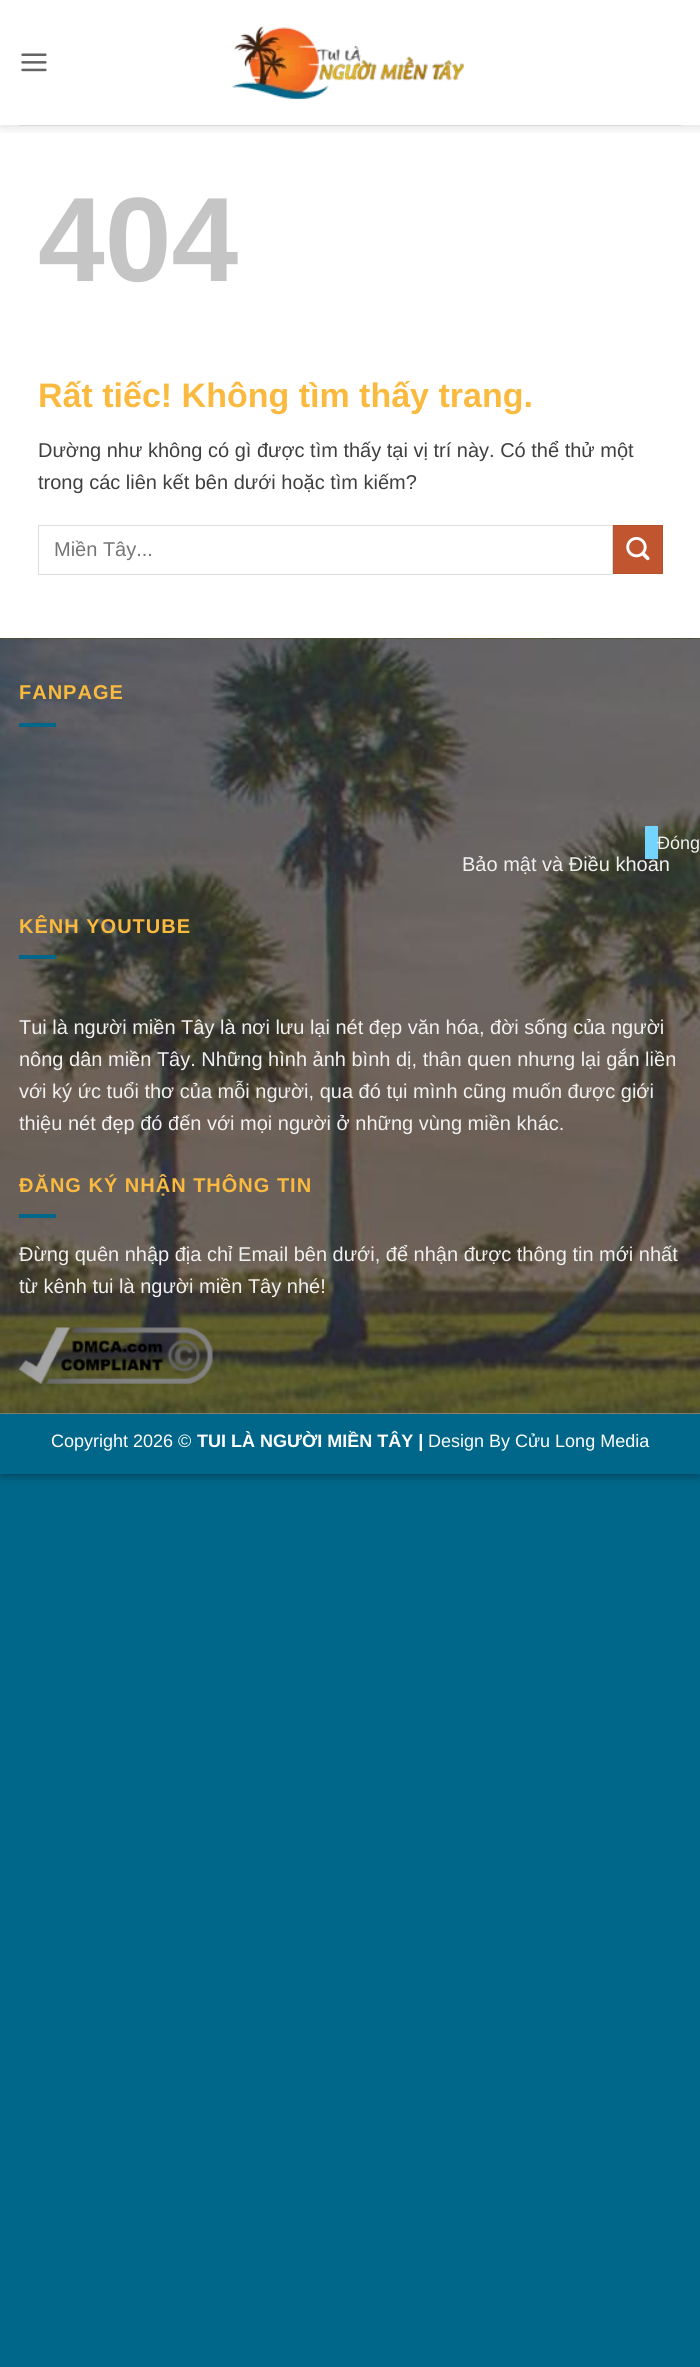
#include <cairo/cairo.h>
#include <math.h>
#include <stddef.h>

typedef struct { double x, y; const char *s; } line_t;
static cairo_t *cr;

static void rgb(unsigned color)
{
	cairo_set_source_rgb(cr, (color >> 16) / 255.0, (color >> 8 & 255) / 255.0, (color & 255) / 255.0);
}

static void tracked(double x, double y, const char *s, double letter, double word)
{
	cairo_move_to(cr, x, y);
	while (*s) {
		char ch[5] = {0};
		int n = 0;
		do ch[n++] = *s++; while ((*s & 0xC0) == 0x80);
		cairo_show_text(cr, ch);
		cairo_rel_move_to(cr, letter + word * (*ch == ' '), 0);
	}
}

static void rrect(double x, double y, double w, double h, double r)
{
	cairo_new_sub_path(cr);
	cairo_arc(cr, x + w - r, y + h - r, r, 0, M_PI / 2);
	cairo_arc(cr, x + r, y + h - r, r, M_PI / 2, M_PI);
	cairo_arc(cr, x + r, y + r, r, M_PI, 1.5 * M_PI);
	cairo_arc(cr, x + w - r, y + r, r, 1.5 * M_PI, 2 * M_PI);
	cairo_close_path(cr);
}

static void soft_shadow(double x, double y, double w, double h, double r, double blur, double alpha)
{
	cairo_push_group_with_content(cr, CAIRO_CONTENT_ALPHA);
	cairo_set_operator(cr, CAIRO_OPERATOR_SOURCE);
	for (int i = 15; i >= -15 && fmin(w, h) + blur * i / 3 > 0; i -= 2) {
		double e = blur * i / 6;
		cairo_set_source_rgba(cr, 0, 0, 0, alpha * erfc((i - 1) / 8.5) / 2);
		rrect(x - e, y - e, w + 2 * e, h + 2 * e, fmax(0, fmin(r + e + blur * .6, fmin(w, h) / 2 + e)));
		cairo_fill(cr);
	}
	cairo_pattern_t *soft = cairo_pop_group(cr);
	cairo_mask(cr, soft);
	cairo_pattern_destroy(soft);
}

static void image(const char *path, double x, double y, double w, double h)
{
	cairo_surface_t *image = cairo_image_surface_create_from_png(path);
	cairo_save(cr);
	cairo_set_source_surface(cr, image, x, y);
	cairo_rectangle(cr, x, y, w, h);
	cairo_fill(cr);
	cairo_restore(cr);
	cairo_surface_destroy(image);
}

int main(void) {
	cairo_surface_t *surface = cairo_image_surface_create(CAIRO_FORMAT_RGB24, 700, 2367);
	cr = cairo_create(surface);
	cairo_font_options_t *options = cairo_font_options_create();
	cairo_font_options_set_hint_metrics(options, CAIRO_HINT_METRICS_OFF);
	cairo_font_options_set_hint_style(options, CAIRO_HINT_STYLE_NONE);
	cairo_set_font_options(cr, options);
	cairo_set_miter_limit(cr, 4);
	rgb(0x00678a);
	cairo_paint(cr);
	rgb(0x000000);
	soft_shadow(0, 4, 700, 1474, 0, 4, 0.23);
	soft_shadow(5, 9, 690, 1464, 0, 4, 0.16);
	rgb(0xffffff);
	cairo_rectangle(cr, 0, 0, 700, 1414);
	cairo_fill(cr);
	cairo_save(cr);
	cairo_rectangle(cr, 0, 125, 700, 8);
	cairo_clip(cr);
	rgb(0x000000);
	soft_shadow(1, 1, 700, 125, 0, 6, 0.15);
	cairo_restore(cr);
	image("img/1.png", 21, 53, 26, 19);
	image("img/2.png", 232, 26, 232, 74);
	rgb(0xd9d9d9);
	cairo_rectangle(cr, 19, 125, 662, 1);
	cairo_fill(cr);
	cairo_rectangle(cr, 38.5, 525.5, 574, 49);
	rgb(0xdddddd);
	cairo_set_line_width(cr, 1);
	cairo_stroke(cr);
	rgb(0xc05530);
	cairo_rectangle(cr, 613.5, 525.5, 49, 48);
	cairo_fill_preserve(cr);
	rgb(0xb6512e);
	cairo_stroke(cr);
	image("img/3.png", 626, 536, 24, 25);
	image("img/4.png", 0, 638, 700, 776);
	cairo_set_source_rgba(cr, 0, 0, 0, 0.05);
	cairo_rectangle(cr, 0, 638, 700, 1);
	cairo_fill(cr);
	rgb(0x00678a);
	cairo_rectangle(cr, 19, 723, 37, 4);
	cairo_fill(cr);
	cairo_rectangle(cr, 19, 955, 37, 4);
	cairo_fill(cr);
	cairo_rectangle(cr, 19, 1214, 37, 4);
	cairo_fill(cr);
	image("img/5.png", 18, 1327, 195, 57);
	cairo_rectangle(cr, 0, 1414, 700, 60);
	cairo_fill(cr);
	cairo_select_font_face(cr, "Liberation Sans", CAIRO_FONT_SLANT_NORMAL, CAIRO_FONT_WEIGHT_BOLD);
	cairo_set_font_size(cr, 120);
	rgb(0xc5c5c5);
	cairo_move_to(cr, 38, 281);
	cairo_show_text(cr, "404");
	cairo_set_font_size(cr, 34);
	rgb(0xfaba40);
	cairo_move_to(cr, 38, 407);
	cairo_show_text(cr, "Rất tiếc! Không tìm thấy trang.");
	cairo_select_font_face(cr, "Liberation Sans", CAIRO_FONT_SLANT_NORMAL, CAIRO_FONT_WEIGHT_NORMAL);
	cairo_set_font_size(cr, 20);
	rgb(0x3f3f3f);
	cairo_move_to(cr, 38, 457);
	cairo_show_text(cr, "Dường như không có gì được tìm thấy tại vị trí này. Có thể thử một");
	cairo_move_to(cr, 38, 489);
	cairo_show_text(cr, "trong các liên kết bên dưới hoặc tìm kiếm?");
	rgb(0x757575);
	cairo_move_to(cr, 54, 556);
	cairo_show_text(cr, "Miền Tây...");
	cairo_select_font_face(cr, "Liberation Sans", CAIRO_FONT_SLANT_NORMAL, CAIRO_FONT_WEIGHT_BOLD);
	rgb(0xfaba40);
	tracked(19, 699, "FANPAGE", 1, 0);
	cairo_select_font_face(cr, "Liberation Sans", CAIRO_FONT_SLANT_NORMAL, CAIRO_FONT_WEIGHT_NORMAL);
	rgb(0xf1f1f1);
	cairo_move_to(cr, 462, 871);
	cairo_show_text(cr, "Bảo mật và Điều khoản");
	cairo_select_font_face(cr, "Liberation Sans", CAIRO_FONT_SLANT_NORMAL, CAIRO_FONT_WEIGHT_BOLD);
	rgb(0xfaba40);
	tracked(19, 933, "KÊNH YOUTUBE", 1, 0);
	cairo_select_font_face(cr, "Liberation Sans", CAIRO_FONT_SLANT_NORMAL, CAIRO_FONT_WEIGHT_NORMAL);
	rgb(0xf1f1f1);
	{
		static const line_t items[] = {
			{19, 1034, "Tui là người miền Tây là nơi lưu lại nét đẹp văn hóa, đời sống của người"},
			{19, 1066, "nông dân miền Tây. Những hình ảnh bình dị, thân quen nhưng lại gắn liền"},
			{19, 1098, "với ký ức tuổi thơ của mỗi người, qua đó tụi mình cũng muốn được giới"},
			{19, 1130, "thiệu nét đẹp đó đến với mọi người ở những vùng miền khác."},
		};
		for (size_t i = 0; i < sizeof items / sizeof *items; i++) {
			cairo_move_to(cr, items[i].x, items[i].y);
			cairo_show_text(cr, items[i].s);
		}
	}
	cairo_select_font_face(cr, "Liberation Sans", CAIRO_FONT_SLANT_NORMAL, CAIRO_FONT_WEIGHT_BOLD);
	rgb(0xfaba40);
	tracked(19, 1192, "ĐĂNG KÝ NHẬN THÔNG TIN", 1, 0);
	cairo_select_font_face(cr, "Liberation Sans", CAIRO_FONT_SLANT_NORMAL, CAIRO_FONT_WEIGHT_NORMAL);
	rgb(0xf1f1f1);
	cairo_move_to(cr, 19, 1261);
	cairo_show_text(cr, "Đừng quên nhập địa chỉ Email bên dưới, để nhận được thông tin mới nhất");
	cairo_move_to(cr, 19, 1293);
	cairo_show_text(cr, "từ kênh tui là người miền Tây nhé!");
	rgb(0x73d5ff);
	cairo_rectangle(cr, 645, 826, 13, 33);
	cairo_fill(cr);
	cairo_set_font_size(cr, 18);
	rgb(0xf1f1f1);
	cairo_move_to(cr, 657, 849);
	cairo_show_text(cr, "Đóng");
	rgb(0xffffff);
	cairo_move_to(cr, 51, 1447);
	cairo_show_text(cr, "Copyright 2026 ©");
	cairo_select_font_face(cr, "Liberation Sans", CAIRO_FONT_SLANT_NORMAL, CAIRO_FONT_WEIGHT_BOLD);
	cairo_move_to(cr, 197, 1447);
	cairo_show_text(cr, "TUI LÀ NGƯỜI MIỀN TÂY |");
	cairo_select_font_face(cr, "Liberation Sans", CAIRO_FONT_SLANT_NORMAL, CAIRO_FONT_WEIGHT_NORMAL);
	cairo_move_to(cr, 428, 1447);
	cairo_show_text(cr, "Design By Cửu Long Media");
	cairo_surface_write_to_png(surface, "page.png");
	cairo_font_options_destroy(options);
	cairo_destroy(cr);
	cairo_surface_destroy(surface);
	return 0;
}
